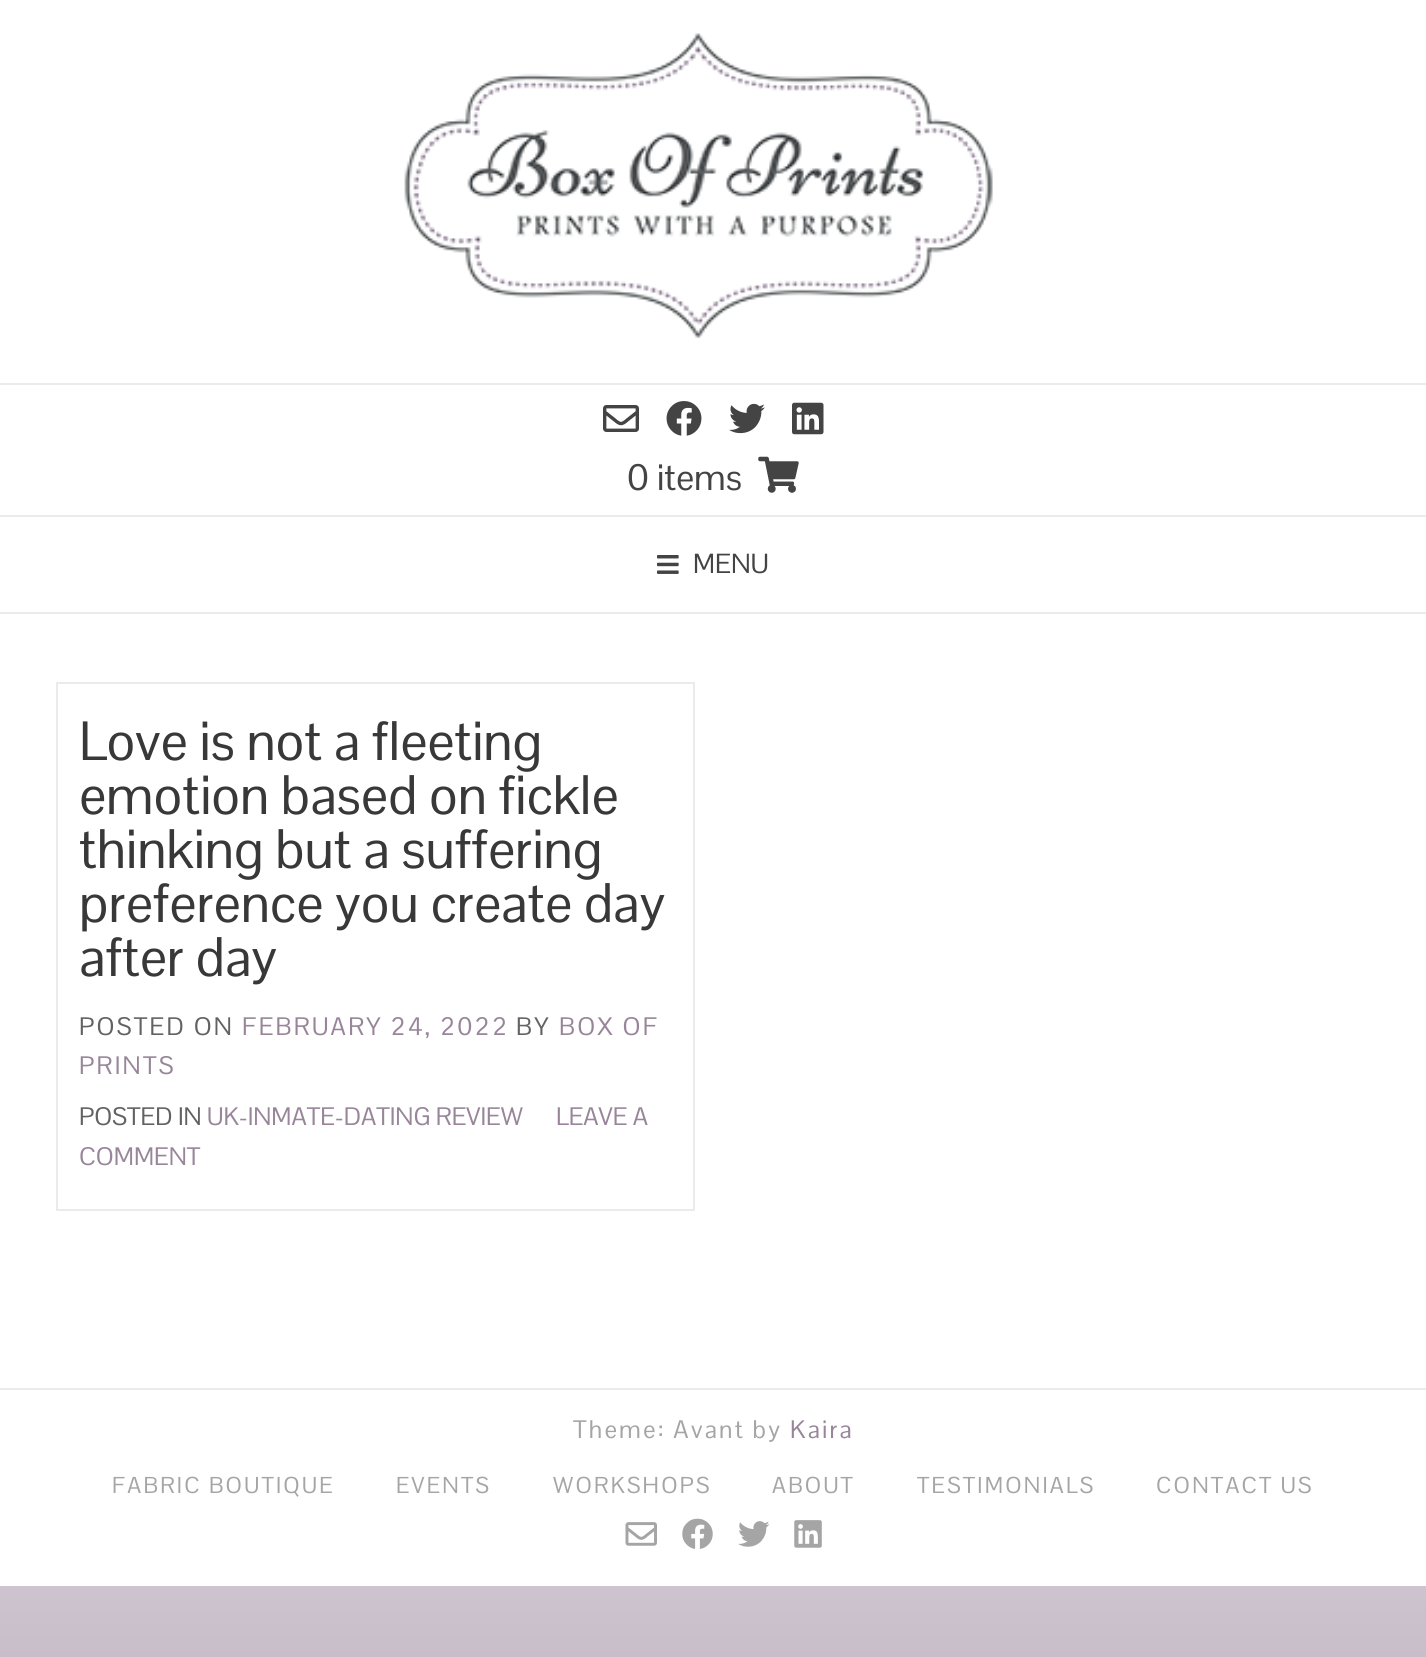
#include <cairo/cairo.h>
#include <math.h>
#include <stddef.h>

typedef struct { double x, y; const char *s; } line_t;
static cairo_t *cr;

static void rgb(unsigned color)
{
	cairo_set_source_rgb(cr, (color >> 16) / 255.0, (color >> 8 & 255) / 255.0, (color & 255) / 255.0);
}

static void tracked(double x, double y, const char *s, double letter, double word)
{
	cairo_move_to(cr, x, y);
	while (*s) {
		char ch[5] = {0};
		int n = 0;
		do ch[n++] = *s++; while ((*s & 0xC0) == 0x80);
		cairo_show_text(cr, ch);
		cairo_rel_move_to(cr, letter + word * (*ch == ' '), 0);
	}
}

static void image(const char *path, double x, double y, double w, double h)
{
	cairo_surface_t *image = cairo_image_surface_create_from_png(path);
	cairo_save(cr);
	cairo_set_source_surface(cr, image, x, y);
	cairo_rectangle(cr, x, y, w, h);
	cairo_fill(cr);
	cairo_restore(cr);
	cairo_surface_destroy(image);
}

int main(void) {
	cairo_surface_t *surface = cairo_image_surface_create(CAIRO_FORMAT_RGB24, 1426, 1657);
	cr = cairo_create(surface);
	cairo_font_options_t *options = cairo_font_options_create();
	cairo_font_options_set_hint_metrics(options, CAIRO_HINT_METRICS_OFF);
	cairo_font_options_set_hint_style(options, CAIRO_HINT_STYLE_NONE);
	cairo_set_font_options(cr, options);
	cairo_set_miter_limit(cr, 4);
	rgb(0xffffff);
	cairo_paint(cr);
	image("img/1.png", 0, 1586, 1426, 71);
	image("img/2.png", 404, 33, 589, 306);
	rgb(0xebebeb);
	cairo_rectangle(cr, 0, 383, 1426, 2);
	cairo_fill(cr);
	image("img/3.png", 603, 405, 36, 27);
	image("img/4.png", 666, 401, 36, 35);
	image("img/5.png", 729, 403, 36, 31);
	image("img/6.png", 792, 402, 32, 33);
	image("img/7.png", 758, 456, 41, 37);
	cairo_rectangle(cr, 0, 515, 1426, 2);
	cairo_fill(cr);
	cairo_rectangle(cr, 0, 612, 1426, 2);
	cairo_fill(cr);
	image("img/8.png", 657, 555, 22, 19);
	cairo_rectangle(cr, 57, 683, 637, 527);
	cairo_stroke(cr);
	cairo_rectangle(cr, 0, 1388, 1426, 2);
	cairo_fill(cr);
	image("img/9.png", 625, 1522, 32, 24);
	image("img/10.png", 682, 1518, 31, 31);
	image("img/11.png", 738, 1521, 32, 26);
	image("img/12.png", 794, 1520, 28, 28);
	cairo_select_font_face(cr, "Pontano Sans", CAIRO_FONT_SLANT_NORMAL, CAIRO_FONT_WEIGHT_NORMAL);
	cairo_set_font_size(cr, 36);
	rgb(0x444444);
	cairo_move_to(cr, 627, 490);
	cairo_show_text(cr, "0 items");
	cairo_set_font_size(cr, 27);
	cairo_move_to(cr, 693, 573);
	cairo_show_text(cr, "MENU");
	cairo_set_font_size(cr, 54);
	rgb(0x383838);
	{
		static const line_t items[] = {
			{79, 760, "Love is not a fleeting"},
			{79, 814, "emotion based on fickle"},
			{79, 868, "thinking but a suffering"},
			{79, 922, "preference you create day"},
			{79, 976, "after day"},
		};
		for (size_t i = 0; i < sizeof items / sizeof *items; i++) {
			cairo_move_to(cr, items[i].x, items[i].y);
			cairo_show_text(cr, items[i].s);
		}
	}
	cairo_set_font_size(cr, 24.75);
	rgb(0x636161);
	tracked(79, 1035, "POSTED ON", 2.25, 0);
	rgb(0x98859a);
	tracked(242, 1035, "FEBRUARY 24, 2022", 2.25, 0);
	rgb(0x636161);
	tracked(516, 1035, "BY", 2.25, 0);
	rgb(0x98859a);
	tracked(559, 1035, "BOX OF", 2.25, 0);
	tracked(79, 1074, "PRINTS", 2.25, 0);
	rgb(0x636161);
	cairo_move_to(cr, 79, 1125);
	cairo_show_text(cr, "POSTED IN");
	rgb(0x98859a);
	{
		static const line_t items[] = {
			{207, 1125, "UK-INMATE-DATING REVIEW"},
			{556, 1125, "LEAVE A"},
			{79, 1165, "COMMENT"},
		};
		for (size_t i = 0; i < sizeof items / sizeof *items; i++) {
			cairo_move_to(cr, items[i].x, items[i].y);
			cairo_show_text(cr, items[i].s);
		}
	}
	rgb(0xa5a5a5);
	tracked(573, 1438, "Theme: Avant by", 2.25, 0);
	rgb(0x98859a);
	tracked(790, 1438, "Kaira", 2.25, 0);
	cairo_set_font_size(cr, 22.5);
	rgb(0xa5a5a5);
	{
		static const line_t items[] = {
			{112, 1493, "FABRIC BOUTIQUE"},
			{396, 1493, "EVENTS"},
			{553, 1493, "WORKSHOPS"},
			{772, 1493, "ABOUT"},
			{917, 1493, "TESTIMONIALS"},
			{1156, 1493, "CONTACT US"},
		};
		for (size_t i = 0; i < sizeof items / sizeof *items; i++) {
			tracked(items[i].x, items[i].y, items[i].s, 2.25, 0);
		}
	}
	cairo_surface_write_to_png(surface, "page.png");
	cairo_font_options_destroy(options);
	cairo_destroy(cr);
	cairo_surface_destroy(surface);
	return 0;
}
